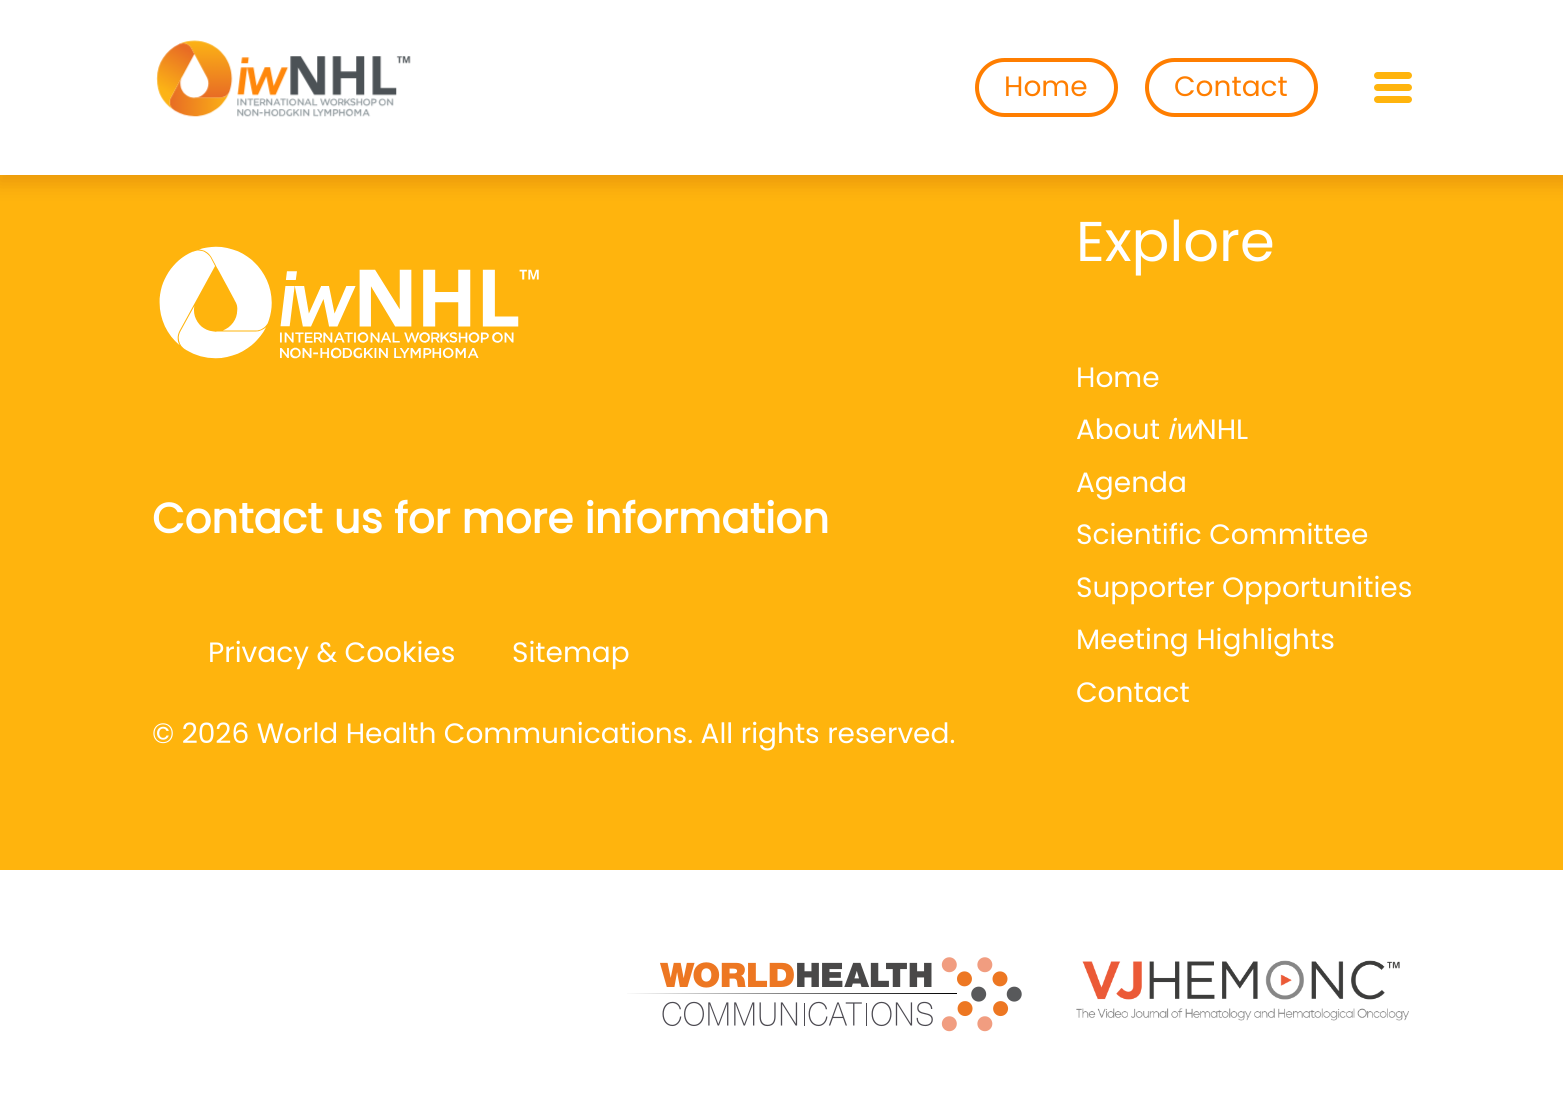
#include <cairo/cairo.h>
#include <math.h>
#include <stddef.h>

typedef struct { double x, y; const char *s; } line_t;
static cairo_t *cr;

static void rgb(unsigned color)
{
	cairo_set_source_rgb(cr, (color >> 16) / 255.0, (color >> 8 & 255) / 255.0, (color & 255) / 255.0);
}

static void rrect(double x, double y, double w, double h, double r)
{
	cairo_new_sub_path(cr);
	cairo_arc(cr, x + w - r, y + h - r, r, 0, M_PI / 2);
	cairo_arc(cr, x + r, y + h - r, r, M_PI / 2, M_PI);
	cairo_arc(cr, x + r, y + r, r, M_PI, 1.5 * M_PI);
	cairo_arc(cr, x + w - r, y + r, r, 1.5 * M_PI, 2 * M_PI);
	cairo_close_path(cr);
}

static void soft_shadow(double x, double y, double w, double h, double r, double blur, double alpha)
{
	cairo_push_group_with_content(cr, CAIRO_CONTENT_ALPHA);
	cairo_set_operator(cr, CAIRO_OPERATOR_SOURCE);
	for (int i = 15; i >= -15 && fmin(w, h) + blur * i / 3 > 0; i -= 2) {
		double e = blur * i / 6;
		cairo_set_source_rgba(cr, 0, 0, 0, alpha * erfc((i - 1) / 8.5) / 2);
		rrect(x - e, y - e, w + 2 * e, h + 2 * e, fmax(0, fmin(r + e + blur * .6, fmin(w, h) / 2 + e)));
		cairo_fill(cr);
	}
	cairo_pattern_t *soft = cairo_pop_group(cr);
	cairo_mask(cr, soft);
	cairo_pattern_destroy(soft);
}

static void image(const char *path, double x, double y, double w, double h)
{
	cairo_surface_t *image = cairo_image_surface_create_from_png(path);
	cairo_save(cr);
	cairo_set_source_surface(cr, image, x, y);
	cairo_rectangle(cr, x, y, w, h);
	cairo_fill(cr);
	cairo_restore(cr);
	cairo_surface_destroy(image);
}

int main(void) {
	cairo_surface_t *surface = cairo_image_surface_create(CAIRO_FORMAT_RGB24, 1563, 1105);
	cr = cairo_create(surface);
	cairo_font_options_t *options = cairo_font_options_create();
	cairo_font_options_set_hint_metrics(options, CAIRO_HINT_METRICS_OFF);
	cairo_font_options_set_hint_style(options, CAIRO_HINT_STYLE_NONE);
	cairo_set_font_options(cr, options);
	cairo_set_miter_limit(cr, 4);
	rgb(0xffffff);
	cairo_paint(cr);
	rgb(0xffb40d);
	cairo_rectangle(cr, 0, 175, 1563, 695);
	cairo_fill(cr);
	rgb(0x750000);
	soft_shadow(-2, 5, 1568, 179, 0, 9.5, 0.15);
	rgb(0xffffff);
	cairo_rectangle(cr, 0, 0, 1563, 175);
	cairo_fill(cr);
	image("img/1.png", 156, 40, 255, 77);
	rrect(977, 60, 139, 55, 27.5);
	rgb(0xff7e00);
	cairo_set_line_width(cr, 4);
	cairo_stroke(cr);
	rrect(1147, 60, 169, 55, 27.5);
	cairo_stroke(cr);
	rgb(0xffb40d);
	rrect(1374, 84, 38, 7, 3.5);
	cairo_fill(cr);
	rrect(1374, 72, 38, 7, 3.5);
	cairo_fill(cr);
	rrect(1374, 96, 38, 7, 3.5);
	cairo_fill(cr);
	image("img/2.png", 159, 246, 380, 113);
	image("img/3.png", 627, 957, 395, 75);
	image("img/4.png", 1076, 960, 333, 61);
	cairo_select_font_face(cr, "Poppins", CAIRO_FONT_SLANT_NORMAL, CAIRO_FONT_WEIGHT_NORMAL);
	cairo_set_font_size(cr, 28);
	rgb(0xff7e00);
	cairo_move_to(cr, 1004, 96);
	cairo_show_text(cr, "Home");
	cairo_move_to(cr, 1174, 96);
	cairo_show_text(cr, "Contact");
	cairo_select_font_face(cr, "Poppins", CAIRO_FONT_SLANT_NORMAL, CAIRO_FONT_WEIGHT_BOLD);
	cairo_set_font_size(cr, 42);
	rgb(0xffffff);
	cairo_move_to(cr, 152, 533);
	cairo_show_text(cr, "Contact us for more information");
	cairo_select_font_face(cr, "Poppins", CAIRO_FONT_SLANT_NORMAL, CAIRO_FONT_WEIGHT_NORMAL);
	cairo_set_font_size(cr, 28);
	{
		static const line_t items[] = {
			{208, 662, "Privacy & Cookies"},
			{512, 662, "Sitemap"},
			{152, 743, "© 2026 World Health Communications. All rights reserved."},
		};
		for (size_t i = 0; i < sizeof items / sizeof *items; i++) {
			cairo_move_to(cr, items[i].x, items[i].y);
			cairo_show_text(cr, items[i].s);
		}
	}
	cairo_set_font_size(cr, 56);
	cairo_move_to(cr, 1076, 261);
	cairo_show_text(cr, "Explore");
	cairo_set_font_size(cr, 28);
	cairo_move_to(cr, 1076, 387);
	cairo_show_text(cr, "Home");
	cairo_move_to(cr, 1076, 439);
	cairo_show_text(cr, "About");
	cairo_select_font_face(cr, "Poppins", CAIRO_FONT_SLANT_ITALIC, CAIRO_FONT_WEIGHT_NORMAL);
	cairo_move_to(cr, 1167, 439);
	cairo_show_text(cr, "iw");
	cairo_select_font_face(cr, "Poppins", CAIRO_FONT_SLANT_NORMAL, CAIRO_FONT_WEIGHT_NORMAL);
	{
		static const line_t items[] = {
			{1197, 439, "NHL"},
			{1076, 492, "Agenda"},
			{1076, 544, "Scientific Committee"},
			{1076, 597, "Supporter Opportunities"},
			{1076, 649, "Meeting Highlights"},
			{1076, 702, "Contact"},
		};
		for (size_t i = 0; i < sizeof items / sizeof *items; i++) {
			cairo_move_to(cr, items[i].x, items[i].y);
			cairo_show_text(cr, items[i].s);
		}
	}
	cairo_surface_write_to_png(surface, "page.png");
	cairo_font_options_destroy(options);
	cairo_destroy(cr);
	cairo_surface_destroy(surface);
	return 0;
}
